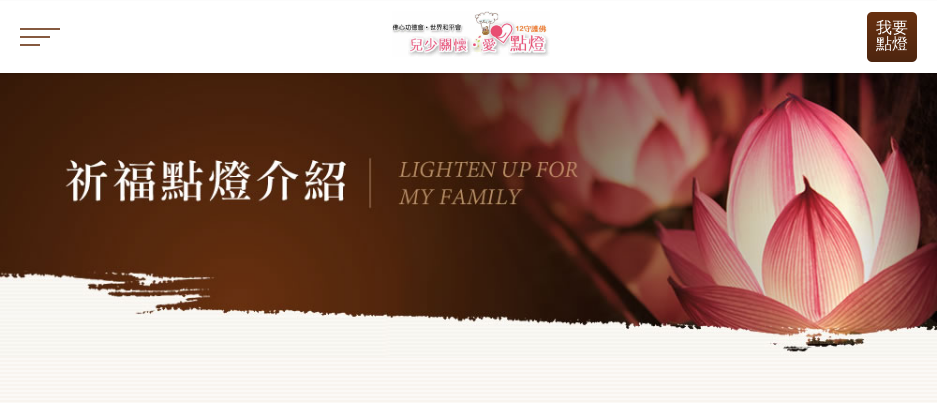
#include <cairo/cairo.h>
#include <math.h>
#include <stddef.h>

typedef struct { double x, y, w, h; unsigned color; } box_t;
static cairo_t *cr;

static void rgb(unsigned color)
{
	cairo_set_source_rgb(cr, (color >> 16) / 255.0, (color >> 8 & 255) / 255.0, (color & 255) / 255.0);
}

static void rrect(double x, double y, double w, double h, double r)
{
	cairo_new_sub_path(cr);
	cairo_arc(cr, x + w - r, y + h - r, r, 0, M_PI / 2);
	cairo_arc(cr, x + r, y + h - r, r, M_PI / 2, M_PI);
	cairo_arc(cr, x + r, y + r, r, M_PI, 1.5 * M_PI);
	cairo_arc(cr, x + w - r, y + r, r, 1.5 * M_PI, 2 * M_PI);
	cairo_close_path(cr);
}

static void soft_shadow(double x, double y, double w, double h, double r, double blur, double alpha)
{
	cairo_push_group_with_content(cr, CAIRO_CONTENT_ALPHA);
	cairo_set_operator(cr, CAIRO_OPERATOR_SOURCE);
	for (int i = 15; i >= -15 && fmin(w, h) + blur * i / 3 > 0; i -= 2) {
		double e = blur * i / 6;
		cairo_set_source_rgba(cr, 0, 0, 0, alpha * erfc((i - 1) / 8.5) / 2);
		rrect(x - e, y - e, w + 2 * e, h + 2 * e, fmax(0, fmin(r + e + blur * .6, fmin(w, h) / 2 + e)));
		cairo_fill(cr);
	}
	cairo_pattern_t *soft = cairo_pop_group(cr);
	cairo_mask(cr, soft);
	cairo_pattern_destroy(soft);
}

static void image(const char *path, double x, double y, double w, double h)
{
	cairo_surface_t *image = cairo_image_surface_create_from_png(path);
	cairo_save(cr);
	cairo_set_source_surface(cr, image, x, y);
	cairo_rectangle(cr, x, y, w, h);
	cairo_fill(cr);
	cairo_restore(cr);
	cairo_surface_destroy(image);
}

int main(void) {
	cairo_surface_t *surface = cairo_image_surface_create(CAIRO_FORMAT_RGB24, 937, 403);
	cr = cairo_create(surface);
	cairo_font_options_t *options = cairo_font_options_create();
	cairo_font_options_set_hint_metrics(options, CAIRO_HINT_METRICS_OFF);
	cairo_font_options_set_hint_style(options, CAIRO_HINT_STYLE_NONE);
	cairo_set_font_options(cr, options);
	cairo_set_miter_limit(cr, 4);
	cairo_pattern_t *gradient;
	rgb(0xffffff);
	cairo_paint(cr);
	image("img/1.png", 0, 357, 937, 46);
	image("img/3.png", 0, 73, 937, 284);
	rgb(0x000000);
	soft_shadow(0, 2, 937, 73, 0, 1, 0.1);
	{
		static const box_t items[] = {
			{0, 1, 937, 72, 0xffffff},
			{20, 36, 30, 2, 0x865a40},
			{20, 28, 40, 2, 0x865a40},
			{20, 44, 20, 2, 0x865a40},
		};
		for (size_t i = 0; i < sizeof items / sizeof *items; i++) {
			rgb(items[i].color);
			cairo_rectangle(cr, items[i].x, items[i].y, items[i].w, items[i].h);
			cairo_fill(cr);
		}
	}
	image("img/2.png", 392, 11, 158, 46);
	gradient = cairo_pattern_create_linear(892, 12, 892, 62);
	cairo_pattern_add_color_stop_rgba(gradient, 0, 0.408, 0.188, 0.059, 1);
	cairo_pattern_add_color_stop_rgba(gradient, 1, 0.302, 0.145, 0.059, 1);
	cairo_set_source(cr, gradient);
	cairo_pattern_destroy(gradient);
	rrect(867, 12, 50, 50, 5);
	cairo_fill(cr);
	cairo_select_font_face(cr, "WenQuanYi Zen Hei Medium", CAIRO_FONT_SLANT_NORMAL, CAIRO_FONT_WEIGHT_NORMAL);
	cairo_set_font_size(cr, 16);
	rgb(0xffffff);
	cairo_move_to(cr, 876, 33);
	cairo_show_text(cr, "我要");
	cairo_move_to(cr, 876, 49);
	cairo_show_text(cr, "點燈");
	cairo_surface_write_to_png(surface, "page.png");
	cairo_font_options_destroy(options);
	cairo_destroy(cr);
	cairo_surface_destroy(surface);
	return 0;
}
